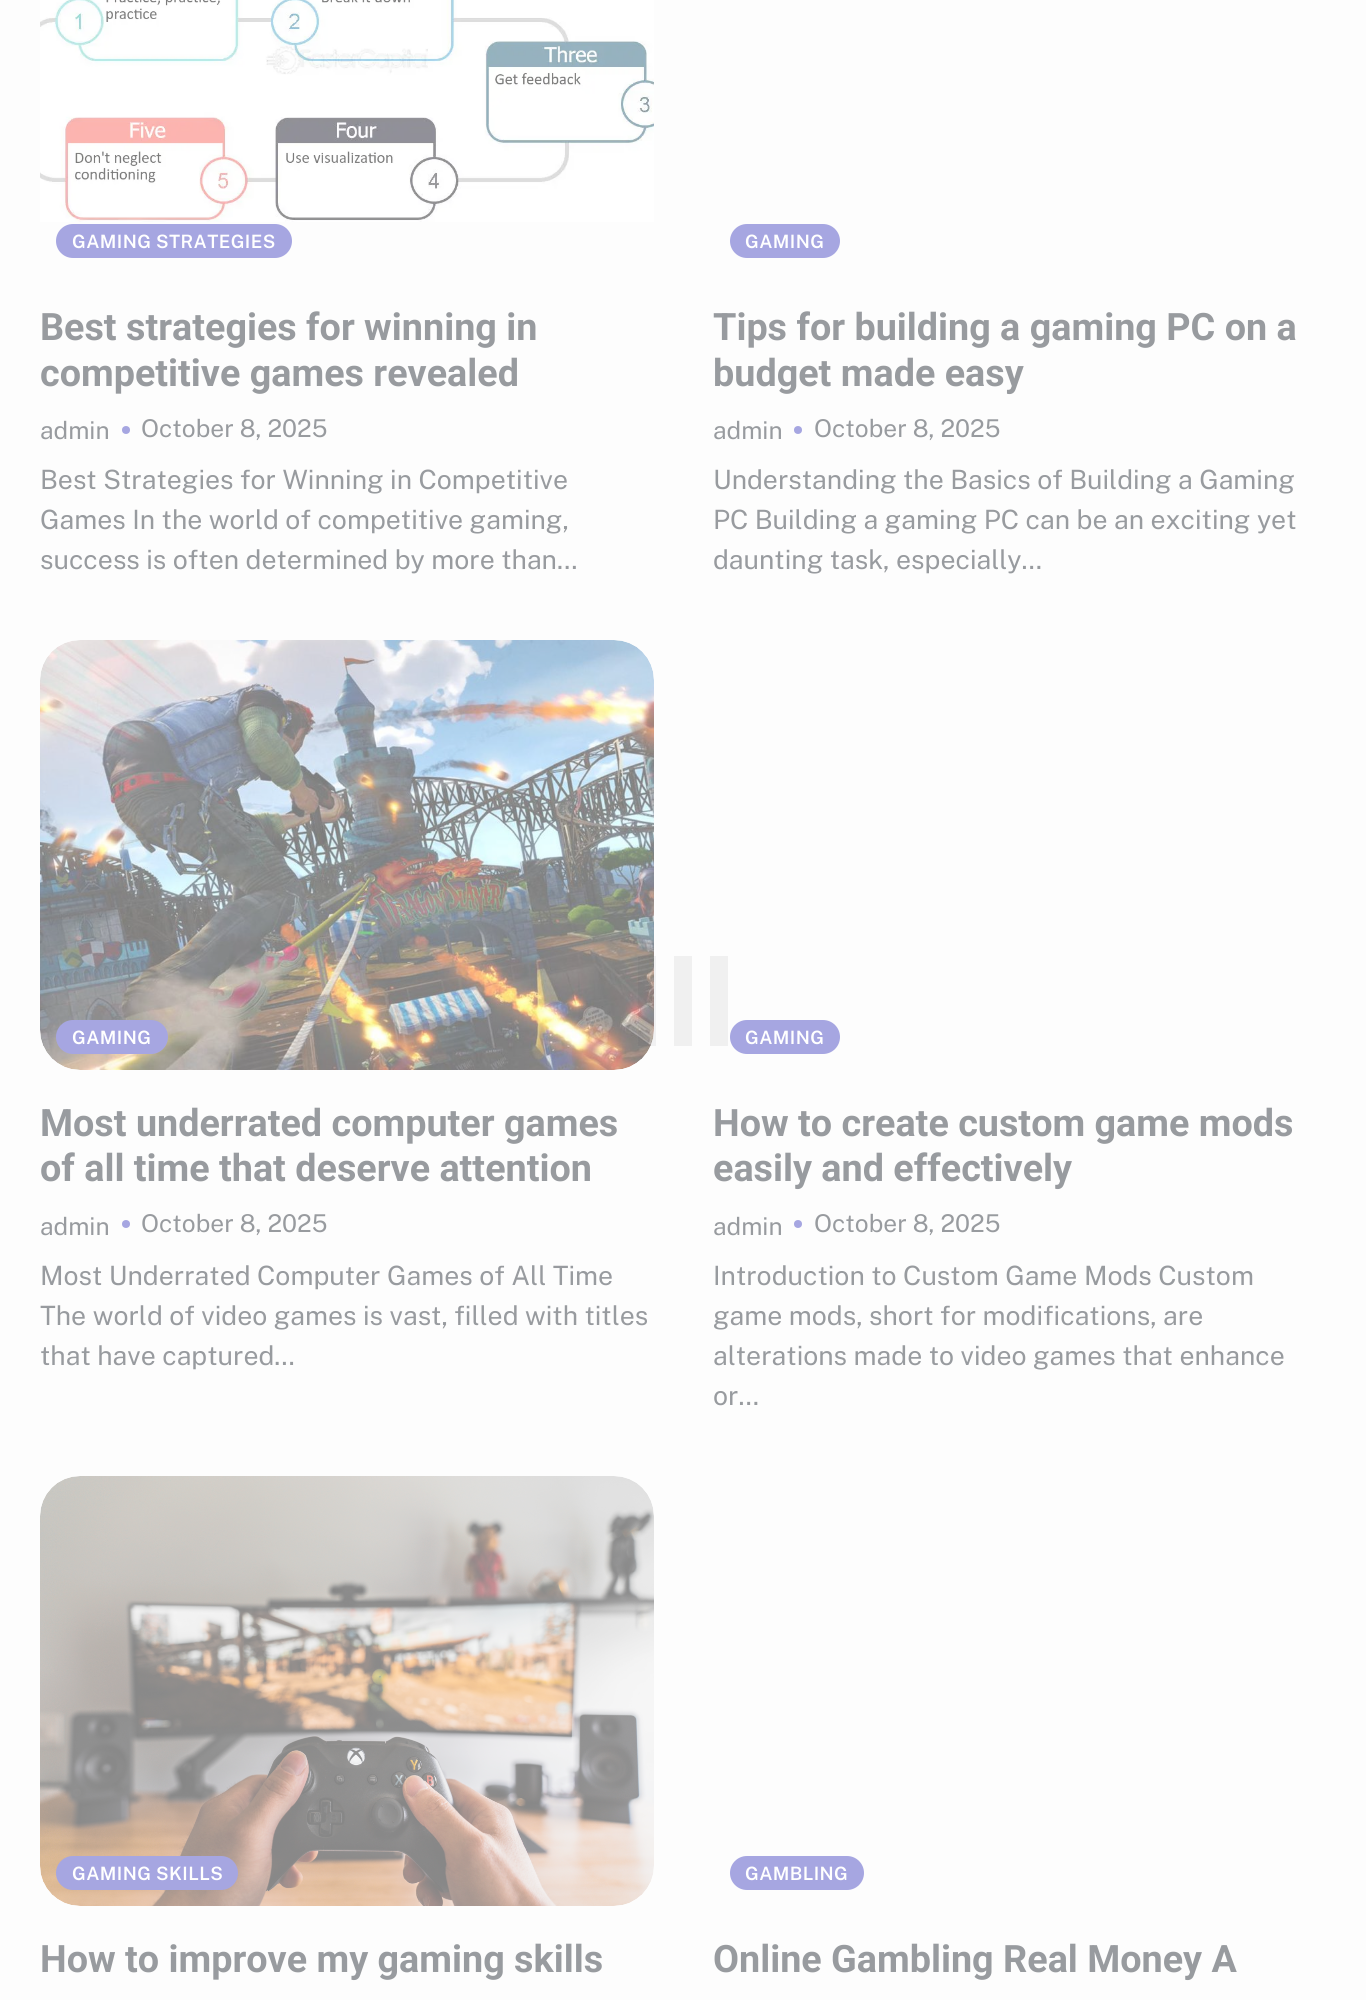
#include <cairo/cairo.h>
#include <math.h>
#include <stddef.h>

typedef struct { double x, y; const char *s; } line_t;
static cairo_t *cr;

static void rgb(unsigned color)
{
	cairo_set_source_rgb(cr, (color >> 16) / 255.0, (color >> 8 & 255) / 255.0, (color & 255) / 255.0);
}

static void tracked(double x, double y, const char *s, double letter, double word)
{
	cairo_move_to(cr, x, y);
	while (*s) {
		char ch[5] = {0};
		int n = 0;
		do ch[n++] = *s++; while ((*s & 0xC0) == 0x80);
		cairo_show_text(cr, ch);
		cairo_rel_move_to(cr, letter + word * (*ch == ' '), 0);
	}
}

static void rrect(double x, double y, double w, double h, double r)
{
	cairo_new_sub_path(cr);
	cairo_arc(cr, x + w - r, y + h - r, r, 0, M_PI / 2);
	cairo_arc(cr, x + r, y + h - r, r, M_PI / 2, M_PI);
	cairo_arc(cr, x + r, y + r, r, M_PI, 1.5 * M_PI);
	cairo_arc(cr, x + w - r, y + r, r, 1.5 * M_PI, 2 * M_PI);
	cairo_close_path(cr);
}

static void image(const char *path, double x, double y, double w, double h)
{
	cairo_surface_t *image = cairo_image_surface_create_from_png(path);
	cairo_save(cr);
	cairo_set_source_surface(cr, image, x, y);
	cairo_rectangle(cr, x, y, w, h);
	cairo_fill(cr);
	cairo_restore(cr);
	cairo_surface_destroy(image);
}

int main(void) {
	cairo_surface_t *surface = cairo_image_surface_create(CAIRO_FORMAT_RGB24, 1366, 2000);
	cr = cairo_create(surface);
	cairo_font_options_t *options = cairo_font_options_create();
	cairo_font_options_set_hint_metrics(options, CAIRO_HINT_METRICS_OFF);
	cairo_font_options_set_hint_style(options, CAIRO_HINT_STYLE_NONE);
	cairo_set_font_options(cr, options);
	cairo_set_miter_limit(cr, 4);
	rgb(0xfdfdfd);
	cairo_paint(cr);
	image("img/1.png", 40, 0, 614, 222);
	rgb(0xa6a6e1);
	rrect(56, 224, 236, 34, 17);
	cairo_fill(cr);
	cairo_arc(cr, 126, 430, 4, 0, 2 * M_PI);
	cairo_fill(cr);
	rrect(730, 224, 110, 34, 17);
	cairo_fill(cr);
	cairo_arc(cr, 798, 430, 4, 0, 2 * M_PI);
	cairo_fill(cr);
	image("img/2.png", 40, 640, 614, 430);
	rrect(56, 1020, 112, 34, 17);
	cairo_fill(cr);
	cairo_arc(cr, 126, 1224, 4, 0, 2 * M_PI);
	cairo_fill(cr);
	rrect(730, 1020, 110, 34, 17);
	cairo_fill(cr);
	cairo_arc(cr, 798, 1224, 4, 0, 2 * M_PI);
	cairo_fill(cr);
	image("img/3.png", 40, 1476, 614, 430);
	rrect(56, 1856, 182, 34, 17);
	cairo_fill(cr);
	rrect(730, 1856, 134, 34, 17);
	cairo_fill(cr);
	rgb(0xf0f0f0);
	cairo_rectangle(cr, 710, 956, 18, 90);
	cairo_fill(cr);
	cairo_rectangle(cr, 674, 956, 18, 90);
	cairo_fill(cr);
	cairo_set_source_rgba(cr, 0.224, 0.243, 0.275, 0.06);
	cairo_rectangle(cr, 638, 956, 18, 90);
	cairo_fill(cr);
	cairo_select_font_face(cr, "Public Sans SemiBold", CAIRO_FONT_SLANT_NORMAL, CAIRO_FONT_WEIGHT_NORMAL);
	cairo_set_font_size(cr, 18.4);
	rgb(0xffffff);
	tracked(72, 248, "GAMING STRATEGIES", 0.4, 0);
	cairo_select_font_face(cr, "Roboto", CAIRO_FONT_SLANT_NORMAL, CAIRO_FONT_WEIGHT_BOLD);
	cairo_set_font_size(cr, 37.75);
	rgb(0x989b9f);
	cairo_move_to(cr, 40, 340);
	cairo_show_text(cr, "Best strategies for winning in");
	cairo_move_to(cr, 40, 386);
	cairo_show_text(cr, "competitive games revealed");
	cairo_select_font_face(cr, "Public Sans", CAIRO_FONT_SLANT_NORMAL, CAIRO_FONT_WEIGHT_NORMAL);
	cairo_set_font_size(cr, 24.5);
	cairo_move_to(cr, 40, 439);
	cairo_show_text(cr, "admin");
	cairo_move_to(cr, 141, 437);
	cairo_show_text(cr, "October 8, 2025");
	cairo_set_font_size(cr, 26.6);
	{
		static const line_t items[] = {
			{40, 489, "Best Strategies for Winning in Competitive"},
			{40, 529, "Games In the world of competitive gaming,"},
			{40, 569, "success is often determined by more than…"},
		};
		for (size_t i = 0; i < sizeof items / sizeof *items; i++) {
			cairo_move_to(cr, items[i].x, items[i].y);
			cairo_show_text(cr, items[i].s);
		}
	}
	cairo_select_font_face(cr, "Public Sans SemiBold", CAIRO_FONT_SLANT_NORMAL, CAIRO_FONT_WEIGHT_NORMAL);
	cairo_set_font_size(cr, 18.4);
	rgb(0xffffff);
	tracked(745, 248, "GAMING", 0.4, 0);
	cairo_select_font_face(cr, "Roboto", CAIRO_FONT_SLANT_NORMAL, CAIRO_FONT_WEIGHT_BOLD);
	cairo_set_font_size(cr, 37.75);
	rgb(0x989b9f);
	cairo_move_to(cr, 713, 340);
	cairo_show_text(cr, "Tips for building a gaming PC on a");
	cairo_move_to(cr, 713, 386);
	cairo_show_text(cr, "budget made easy");
	cairo_select_font_face(cr, "Public Sans", CAIRO_FONT_SLANT_NORMAL, CAIRO_FONT_WEIGHT_NORMAL);
	cairo_set_font_size(cr, 24.5);
	cairo_move_to(cr, 713, 439);
	cairo_show_text(cr, "admin");
	cairo_move_to(cr, 814, 437);
	cairo_show_text(cr, "October 8, 2025");
	cairo_set_font_size(cr, 26.6);
	{
		static const line_t items[] = {
			{713, 489, "Understanding the Basics of Building a Gaming"},
			{713, 529, "PC Building a gaming PC can be an exciting yet"},
			{713, 569, "daunting task, especially…"},
		};
		for (size_t i = 0; i < sizeof items / sizeof *items; i++) {
			cairo_move_to(cr, items[i].x, items[i].y);
			cairo_show_text(cr, items[i].s);
		}
	}
	cairo_select_font_face(cr, "Public Sans SemiBold", CAIRO_FONT_SLANT_NORMAL, CAIRO_FONT_WEIGHT_NORMAL);
	cairo_set_font_size(cr, 18.4);
	rgb(0xffffff);
	tracked(72, 1044, "GAMING", 0.4, 0);
	cairo_select_font_face(cr, "Roboto", CAIRO_FONT_SLANT_NORMAL, CAIRO_FONT_WEIGHT_BOLD);
	cairo_set_font_size(cr, 37.75);
	rgb(0x989b9f);
	cairo_move_to(cr, 40, 1136);
	cairo_show_text(cr, "Most underrated computer games");
	cairo_move_to(cr, 40, 1181);
	cairo_show_text(cr, "of all time that deserve attention");
	cairo_select_font_face(cr, "Public Sans", CAIRO_FONT_SLANT_NORMAL, CAIRO_FONT_WEIGHT_NORMAL);
	cairo_set_font_size(cr, 24.5);
	cairo_move_to(cr, 40, 1235);
	cairo_show_text(cr, "admin");
	cairo_move_to(cr, 141, 1232);
	cairo_show_text(cr, "October 8, 2025");
	cairo_set_font_size(cr, 26.6);
	{
		static const line_t items[] = {
			{40, 1285, "Most Underrated Computer Games of All Time"},
			{40, 1325, "The world of video games is vast, filled with titles"},
			{40, 1365, "that have captured…"},
		};
		for (size_t i = 0; i < sizeof items / sizeof *items; i++) {
			cairo_move_to(cr, items[i].x, items[i].y);
			cairo_show_text(cr, items[i].s);
		}
	}
	cairo_select_font_face(cr, "Public Sans SemiBold", CAIRO_FONT_SLANT_NORMAL, CAIRO_FONT_WEIGHT_NORMAL);
	cairo_set_font_size(cr, 18.4);
	rgb(0xffffff);
	tracked(745, 1044, "GAMING", 0.4, 0);
	cairo_select_font_face(cr, "Roboto", CAIRO_FONT_SLANT_NORMAL, CAIRO_FONT_WEIGHT_BOLD);
	cairo_set_font_size(cr, 37.75);
	rgb(0x989b9f);
	cairo_move_to(cr, 713, 1136);
	cairo_show_text(cr, "How to create custom game mods");
	cairo_move_to(cr, 713, 1181);
	cairo_show_text(cr, "easily and effectively");
	cairo_select_font_face(cr, "Public Sans", CAIRO_FONT_SLANT_NORMAL, CAIRO_FONT_WEIGHT_NORMAL);
	cairo_set_font_size(cr, 24.5);
	cairo_move_to(cr, 713, 1235);
	cairo_show_text(cr, "admin");
	cairo_move_to(cr, 814, 1232);
	cairo_show_text(cr, "October 8, 2025");
	cairo_set_font_size(cr, 26.6);
	{
		static const line_t items[] = {
			{713, 1285, "Introduction to Custom Game Mods Custom"},
			{713, 1325, "game mods, short for modifications, are"},
			{713, 1365, "alterations made to video games that enhance"},
			{713, 1405, "or…"},
		};
		for (size_t i = 0; i < sizeof items / sizeof *items; i++) {
			cairo_move_to(cr, items[i].x, items[i].y);
			cairo_show_text(cr, items[i].s);
		}
	}
	cairo_select_font_face(cr, "Public Sans SemiBold", CAIRO_FONT_SLANT_NORMAL, CAIRO_FONT_WEIGHT_NORMAL);
	cairo_set_font_size(cr, 18.4);
	rgb(0xffffff);
	tracked(72, 1880, "GAMING SKILLS", 0.4, 0);
	cairo_select_font_face(cr, "Roboto", CAIRO_FONT_SLANT_NORMAL, CAIRO_FONT_WEIGHT_BOLD);
	cairo_set_font_size(cr, 37.75);
	rgb(0x989b9f);
	cairo_move_to(cr, 40, 1972);
	cairo_show_text(cr, "How to improve my gaming skills");
	cairo_select_font_face(cr, "Public Sans SemiBold", CAIRO_FONT_SLANT_NORMAL, CAIRO_FONT_WEIGHT_NORMAL);
	cairo_set_font_size(cr, 18.4);
	rgb(0xffffff);
	tracked(745, 1880, "GAMBLING", 0.4, 0);
	cairo_select_font_face(cr, "Roboto", CAIRO_FONT_SLANT_NORMAL, CAIRO_FONT_WEIGHT_BOLD);
	cairo_set_font_size(cr, 37.75);
	rgb(0x989b9f);
	cairo_move_to(cr, 713, 1972);
	cairo_show_text(cr, "Online Gambling Real Money A");
	cairo_surface_write_to_png(surface, "page.png");
	cairo_font_options_destroy(options);
	cairo_destroy(cr);
	cairo_surface_destroy(surface);
	return 0;
}
